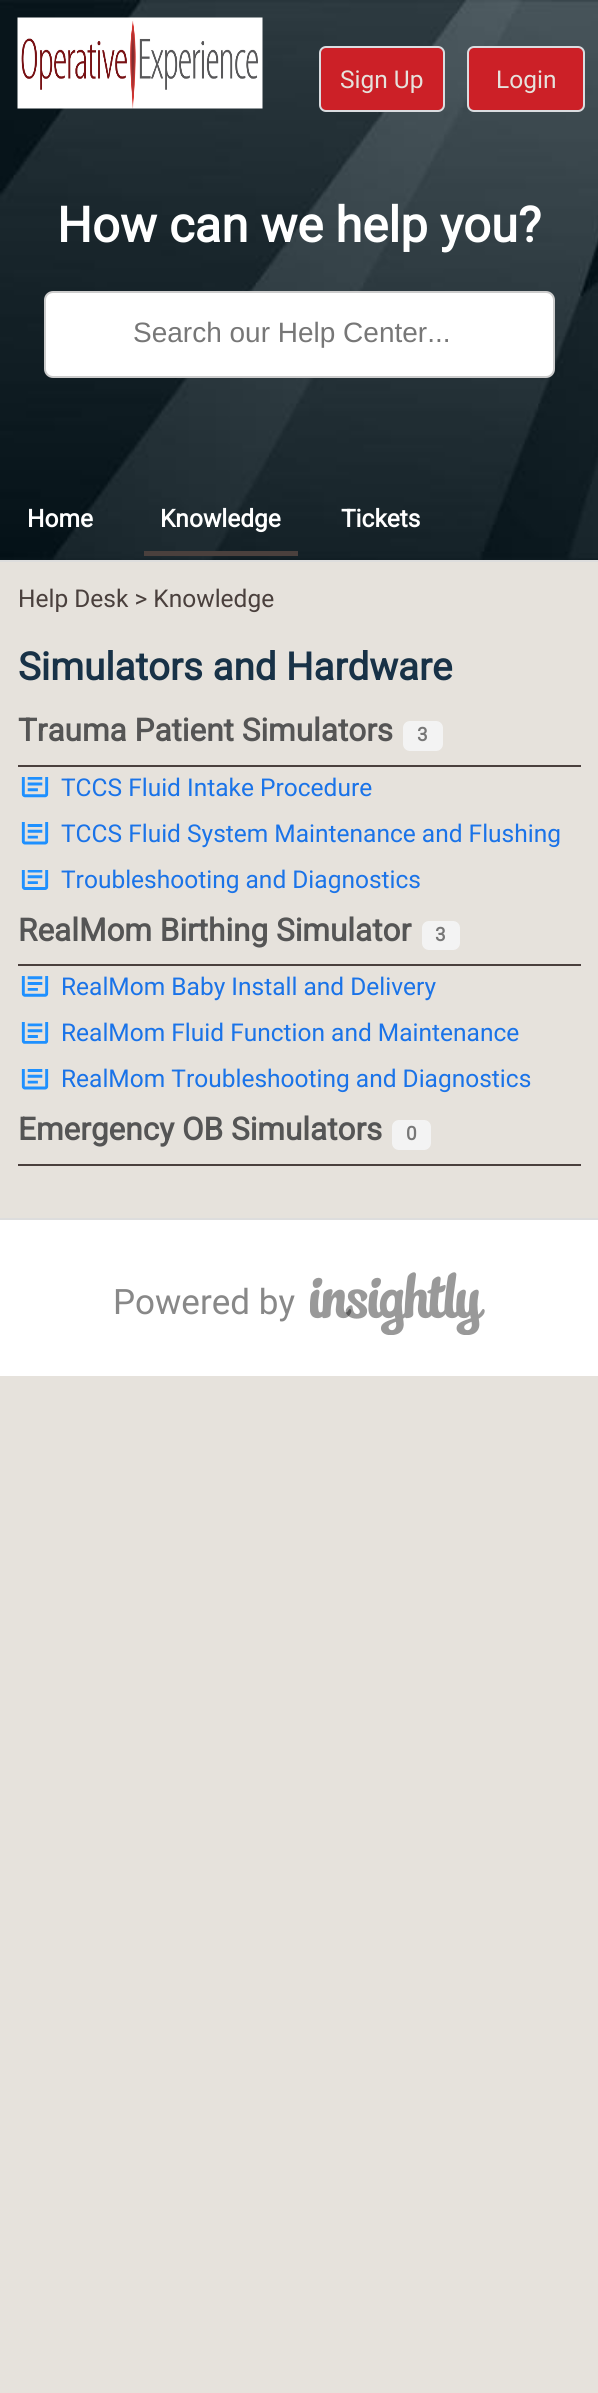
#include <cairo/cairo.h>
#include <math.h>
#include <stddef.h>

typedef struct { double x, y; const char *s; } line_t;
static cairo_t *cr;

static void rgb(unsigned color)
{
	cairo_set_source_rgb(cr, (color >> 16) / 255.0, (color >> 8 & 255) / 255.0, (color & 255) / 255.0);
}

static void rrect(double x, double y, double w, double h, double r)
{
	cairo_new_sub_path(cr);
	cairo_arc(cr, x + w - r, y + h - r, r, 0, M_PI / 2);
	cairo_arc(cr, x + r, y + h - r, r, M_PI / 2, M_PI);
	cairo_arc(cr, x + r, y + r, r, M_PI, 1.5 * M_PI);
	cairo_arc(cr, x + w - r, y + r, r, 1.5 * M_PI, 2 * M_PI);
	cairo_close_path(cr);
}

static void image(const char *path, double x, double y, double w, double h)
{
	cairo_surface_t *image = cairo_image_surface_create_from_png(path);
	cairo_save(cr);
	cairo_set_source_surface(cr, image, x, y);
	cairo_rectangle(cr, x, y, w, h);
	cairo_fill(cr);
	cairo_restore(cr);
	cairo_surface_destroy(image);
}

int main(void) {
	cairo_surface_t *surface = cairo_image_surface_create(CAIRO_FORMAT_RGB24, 598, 2393);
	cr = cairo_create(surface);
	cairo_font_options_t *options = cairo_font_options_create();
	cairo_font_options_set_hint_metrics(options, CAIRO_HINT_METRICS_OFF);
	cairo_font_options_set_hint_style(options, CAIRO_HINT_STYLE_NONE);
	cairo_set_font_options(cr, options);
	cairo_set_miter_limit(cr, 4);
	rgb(0xe6e2dc);
	cairo_paint(cr);
	image("img/1.png", 0, 0, 598, 560);
	rgb(0xdddddd);
	cairo_rectangle(cr, 0, 560, 598, 2);
	cairo_fill(cr);
	image("img/2.png", 17, 17, 246, 92);
	rgb(0xcc2027);
	rrect(320, 47, 124, 64, 6);
	cairo_fill_preserve(cr);
	rgb(0xdadce0);
	cairo_stroke(cr);
	rgb(0xcc2027);
	rrect(468, 47, 116, 64, 6);
	cairo_fill_preserve(cr);
	rgb(0xdadce0);
	cairo_stroke(cr);
	rgb(0x4a403d);
	cairo_rectangle(cr, 144, 551, 154, 5);
	cairo_fill(cr);
	rgb(0xffffff);
	rrect(45, 292, 509, 85, 8);
	cairo_fill_preserve(cr);
	rgb(0xcccccc);
	cairo_stroke(cr);
	rgb(0x4a403d);
	cairo_rectangle(cr, 18, 765, 563, 2);
	cairo_fill(cr);
	rgb(0xf3f3f3);
	rrect(403, 721, 40, 30, 7);
	cairo_fill(cr);
	image("img/3.png", 21, 777, 28, 21);
	image("img/4.png", 21, 822, 28, 23);
	image("img/5.png", 21, 870, 28, 20);
	rgb(0x4a403d);
	cairo_rectangle(cr, 18, 964, 563, 2);
	cairo_fill(cr);
	rgb(0xf3f3f3);
	rrect(422, 921, 38, 29, 7);
	cairo_fill(cr);
	image("img/6.png", 21, 976, 28, 21);
	image("img/7.png", 21, 1022, 28, 22);
	image("img/8.png", 21, 1069, 28, 21);
	rgb(0x4a403d);
	cairo_rectangle(cr, 18, 1164, 563, 2);
	cairo_fill(cr);
	rgb(0xf3f3f3);
	rrect(392, 1120, 39, 30, 7);
	cairo_fill(cr);
	rgb(0xffffff);
	cairo_rectangle(cr, 0, 1220, 598, 156);
	cairo_fill(cr);
	rgb(0xdddddd);
	cairo_rectangle(cr, 0, 1218, 598, 2);
	cairo_fill(cr);
	image("img/9.png", 310, 1272, 175, 63);
	cairo_select_font_face(cr, "Roboto", CAIRO_FONT_SLANT_NORMAL, CAIRO_FONT_WEIGHT_NORMAL);
	cairo_set_font_size(cr, 24.5);
	rgb(0xe6e2dc);
	cairo_move_to(cr, 340, 88);
	cairo_show_text(cr, "Sign Up");
	cairo_move_to(cr, 496, 88);
	cairo_show_text(cr, "Login");
	cairo_select_font_face(cr, "Roboto", CAIRO_FONT_SLANT_NORMAL, CAIRO_FONT_WEIGHT_BOLD);
	rgb(0xffffff);
	{
		static const line_t items[] = {
			{27, 527, "Home"},
			{160, 527, "Knowledge"},
			{341, 527, "Tickets"},
		};
		for (size_t i = 0; i < sizeof items / sizeof *items; i++) {
			cairo_move_to(cr, items[i].x, items[i].y);
			cairo_show_text(cr, items[i].s);
		}
	}
	cairo_set_font_size(cr, 49);
	cairo_move_to(cr, 57, 242);
	cairo_show_text(cr, "How can we help you?");
	cairo_select_font_face(cr, "Liberation Sans", CAIRO_FONT_SLANT_NORMAL, CAIRO_FONT_WEIGHT_NORMAL);
	cairo_set_font_size(cr, 28);
	rgb(0x777777);
	cairo_move_to(cr, 133, 342);
	cairo_show_text(cr, "Search our Help Center...");
	cairo_select_font_face(cr, "Roboto", CAIRO_FONT_SLANT_NORMAL, CAIRO_FONT_WEIGHT_NORMAL);
	cairo_set_font_size(cr, 24.5);
	rgb(0x4a403d);
	cairo_move_to(cr, 18, 607);
	cairo_show_text(cr, "Help Desk > Knowledge");
	cairo_select_font_face(cr, "Roboto", CAIRO_FONT_SLANT_NORMAL, CAIRO_FONT_WEIGHT_BOLD);
	cairo_set_font_size(cr, 38.5);
	rgb(0x183247);
	cairo_move_to(cr, 18, 680);
	cairo_show_text(cr, "Simulators and Hardware");
	cairo_set_font_size(cr, 31.5);
	rgb(0x555555);
	cairo_move_to(cr, 18, 741);
	cairo_show_text(cr, "Trauma Patient Simulators");
	cairo_set_font_size(cr, 19);
	rgb(0x777777);
	cairo_move_to(cr, 417, 741);
	cairo_show_text(cr, "3");
	cairo_select_font_face(cr, "Roboto", CAIRO_FONT_SLANT_NORMAL, CAIRO_FONT_WEIGHT_NORMAL);
	cairo_set_font_size(cr, 24.5);
	rgb(0x1a73e8);
	{
		static const line_t items[] = {
			{61, 796, "TCCS Fluid Intake Procedure"},
			{61, 842, "TCCS Fluid System Maintenance and Flushing"},
			{61, 888, "Troubleshooting and Diagnostics"},
		};
		for (size_t i = 0; i < sizeof items / sizeof *items; i++) {
			cairo_move_to(cr, items[i].x, items[i].y);
			cairo_show_text(cr, items[i].s);
		}
	}
	cairo_select_font_face(cr, "Roboto", CAIRO_FONT_SLANT_NORMAL, CAIRO_FONT_WEIGHT_BOLD);
	cairo_set_font_size(cr, 31.5);
	rgb(0x555555);
	cairo_move_to(cr, 18, 941);
	cairo_show_text(cr, "RealMom Birthing Simulator");
	cairo_set_font_size(cr, 19);
	rgb(0x777777);
	cairo_move_to(cr, 435, 941);
	cairo_show_text(cr, "3");
	cairo_select_font_face(cr, "Roboto", CAIRO_FONT_SLANT_NORMAL, CAIRO_FONT_WEIGHT_NORMAL);
	cairo_set_font_size(cr, 24.5);
	rgb(0x1a73e8);
	{
		static const line_t items[] = {
			{61, 995, "RealMom Baby Install and Delivery"},
			{61, 1041, "RealMom Fluid Function and Maintenance"},
			{61, 1087, "RealMom Troubleshooting and Diagnostics"},
		};
		for (size_t i = 0; i < sizeof items / sizeof *items; i++) {
			cairo_move_to(cr, items[i].x, items[i].y);
			cairo_show_text(cr, items[i].s);
		}
	}
	cairo_select_font_face(cr, "Roboto", CAIRO_FONT_SLANT_NORMAL, CAIRO_FONT_WEIGHT_BOLD);
	cairo_set_font_size(cr, 31.5);
	rgb(0x555555);
	cairo_move_to(cr, 18, 1140);
	cairo_show_text(cr, "Emergency OB Simulators");
	cairo_set_font_size(cr, 19);
	rgb(0x777777);
	cairo_move_to(cr, 406, 1140);
	cairo_show_text(cr, "0");
	cairo_select_font_face(cr, "Roboto", CAIRO_FONT_SLANT_NORMAL, CAIRO_FONT_WEIGHT_NORMAL);
	cairo_set_font_size(cr, 35);
	rgb(0x888888);
	cairo_move_to(cr, 113, 1314);
	cairo_show_text(cr, "Powered by");
	cairo_surface_write_to_png(surface, "page.png");
	cairo_font_options_destroy(options);
	cairo_destroy(cr);
	cairo_surface_destroy(surface);
	return 0;
}
